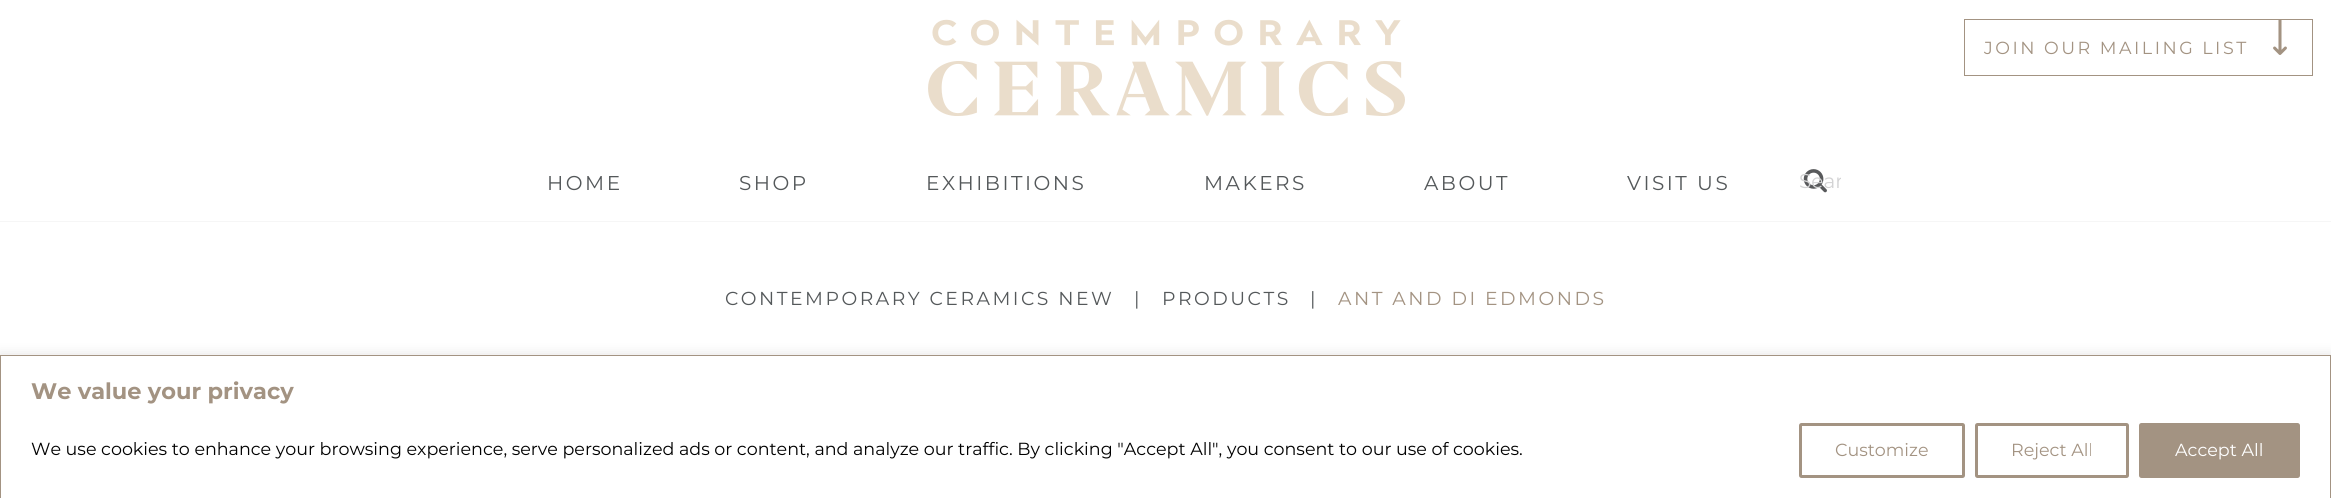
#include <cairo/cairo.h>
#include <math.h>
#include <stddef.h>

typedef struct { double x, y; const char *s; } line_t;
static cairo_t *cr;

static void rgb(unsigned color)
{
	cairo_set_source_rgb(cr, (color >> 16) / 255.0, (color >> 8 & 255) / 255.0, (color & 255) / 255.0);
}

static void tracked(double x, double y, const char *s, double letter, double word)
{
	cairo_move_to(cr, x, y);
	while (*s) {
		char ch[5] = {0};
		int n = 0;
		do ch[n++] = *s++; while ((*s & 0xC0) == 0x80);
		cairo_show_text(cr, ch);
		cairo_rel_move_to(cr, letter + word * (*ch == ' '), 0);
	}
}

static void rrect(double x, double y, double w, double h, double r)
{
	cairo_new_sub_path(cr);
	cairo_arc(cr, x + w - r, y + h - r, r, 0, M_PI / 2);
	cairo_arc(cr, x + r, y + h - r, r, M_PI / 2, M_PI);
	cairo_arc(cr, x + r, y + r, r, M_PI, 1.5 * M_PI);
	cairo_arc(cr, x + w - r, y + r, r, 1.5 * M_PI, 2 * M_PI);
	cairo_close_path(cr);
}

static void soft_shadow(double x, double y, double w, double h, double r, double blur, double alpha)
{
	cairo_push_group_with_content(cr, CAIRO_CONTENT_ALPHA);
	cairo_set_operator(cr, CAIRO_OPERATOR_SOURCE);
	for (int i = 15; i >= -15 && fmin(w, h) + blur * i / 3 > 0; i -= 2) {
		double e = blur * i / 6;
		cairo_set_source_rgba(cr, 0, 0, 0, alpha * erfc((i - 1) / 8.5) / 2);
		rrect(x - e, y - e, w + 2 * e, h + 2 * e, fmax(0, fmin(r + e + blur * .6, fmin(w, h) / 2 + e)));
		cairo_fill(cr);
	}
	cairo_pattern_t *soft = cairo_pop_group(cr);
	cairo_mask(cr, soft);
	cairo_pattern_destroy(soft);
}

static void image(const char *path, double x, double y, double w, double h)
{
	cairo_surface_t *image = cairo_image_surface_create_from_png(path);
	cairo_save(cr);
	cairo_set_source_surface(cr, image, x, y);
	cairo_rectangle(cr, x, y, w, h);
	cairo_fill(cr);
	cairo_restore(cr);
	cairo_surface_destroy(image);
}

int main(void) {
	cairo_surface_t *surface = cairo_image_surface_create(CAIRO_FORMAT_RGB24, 2331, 498);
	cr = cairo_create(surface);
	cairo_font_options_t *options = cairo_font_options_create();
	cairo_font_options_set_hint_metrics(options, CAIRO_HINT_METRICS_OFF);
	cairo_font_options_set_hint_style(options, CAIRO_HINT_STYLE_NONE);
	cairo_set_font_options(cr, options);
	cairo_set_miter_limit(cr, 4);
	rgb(0xffffff);
	cairo_paint(cr);
	image("img/1.png", 2273, 20, 14, 35);
	cairo_rectangle(cr, 1964.5, 19.5, 348, 56);
	rgb(0xa39382);
	cairo_set_line_width(cr, 1);
	cairo_stroke(cr);
	rgb(0xf6f6f6);
	cairo_rectangle(cr, 0, 221, 2331, 1);
	cairo_fill(cr);
	image("img/2.png", 928, 19, 477, 97);
	image("img/3.png", 1803, 169, 24, 24);
	rgb(0xacabab);
	soft_shadow(0, 354, 2331, 144, 0, 6, 0.3);
	rgb(0xffffff);
	cairo_rectangle(cr, 0.5, 355.5, 2330, 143);
	cairo_fill_preserve(cr);
	rgb(0xa39382);
	cairo_stroke(cr);
	rrect(1800.5, 424.5, 163, 52, 1);
	cairo_set_line_width(cr, 3);
	cairo_stroke(cr);
	rrect(1976.5, 424.5, 151, 52, 1);
	cairo_stroke(cr);
	rrect(2140.5, 424.5, 158, 52, 1);
	cairo_fill_preserve(cr);
	cairo_stroke(cr);
	cairo_select_font_face(cr, "Montserrat", CAIRO_FONT_SLANT_NORMAL, CAIRO_FONT_WEIGHT_NORMAL);
	cairo_set_font_size(cr, 17.5);
	tracked(1984, 54, "JOIN OUR MAILING LIST", 2.5, 0);
	cairo_set_font_size(cr, 20);
	rgb(0x54585a);
	{
		static const line_t items[] = {
			{547, 190, "HOME"},
			{739, 190, "SHOP"},
			{926, 190, "EXHIBITIONS"},
			{1204, 190, "MAKERS"},
			{1424, 190, "ABOUT"},
			{1627, 190, "VISIT US"},
		};
		for (size_t i = 0; i < sizeof items / sizeof *items; i++) {
			tracked(items[i].x, items[i].y, items[i].s, 2.5, 0);
		}
	}
	cairo_save(cr);
	cairo_rectangle(cr, 1800, 170, 41, 24);
	cairo_clip(cr);
	rgb(0xd3d3d4);
	cairo_move_to(cr, 1799, 188);
	cairo_show_text(cr, "Sear");
	cairo_restore(cr);
	cairo_set_font_size(cr, 18.75);
	{
		static const line_t items[] = {
			{725, 305, "CONTEMPORARY CERAMICS NEW"},
			{1134, 305, "|"},
			{1162, 305, "PRODUCTS"},
			{1310, 305, "|"},
		};
		for (size_t i = 0; i < sizeof items / sizeof *items; i++) {
			tracked(items[i].x, items[i].y, items[i].s, 2.5, 0);
		}
	}
	rgb(0xa39382);
	tracked(1338, 305, "ANT AND DI EDMONDS", 2.5, 0);
	cairo_select_font_face(cr, "Montserrat", CAIRO_FONT_SLANT_NORMAL, CAIRO_FONT_WEIGHT_BOLD);
	cairo_set_font_size(cr, 22.5);
	cairo_move_to(cr, 31, 399);
	cairo_show_text(cr, "We value your privacy");
	cairo_select_font_face(cr, "Montserrat", CAIRO_FONT_SLANT_NORMAL, CAIRO_FONT_WEIGHT_NORMAL);
	cairo_set_font_size(cr, 17.5);
	rgb(0x000000);
	cairo_move_to(cr, 31, 455);
	cairo_show_text(cr, "We use cookies to enhance your browsing experience, serve personalized ads or content, and analyze our traffic. By clicking \"Accept All\", you consent to our use of cookies.");
	rgb(0xa39382);
	cairo_move_to(cr, 1835, 456);
	cairo_show_text(cr, "Customize");
	cairo_move_to(cr, 2011, 456);
	cairo_show_text(cr, "Reject All");
	rgb(0xffffff);
	cairo_move_to(cr, 2175, 456);
	cairo_show_text(cr, "Accept All");
	cairo_surface_write_to_png(surface, "page.png");
	cairo_font_options_destroy(options);
	cairo_destroy(cr);
	cairo_surface_destroy(surface);
	return 0;
}
